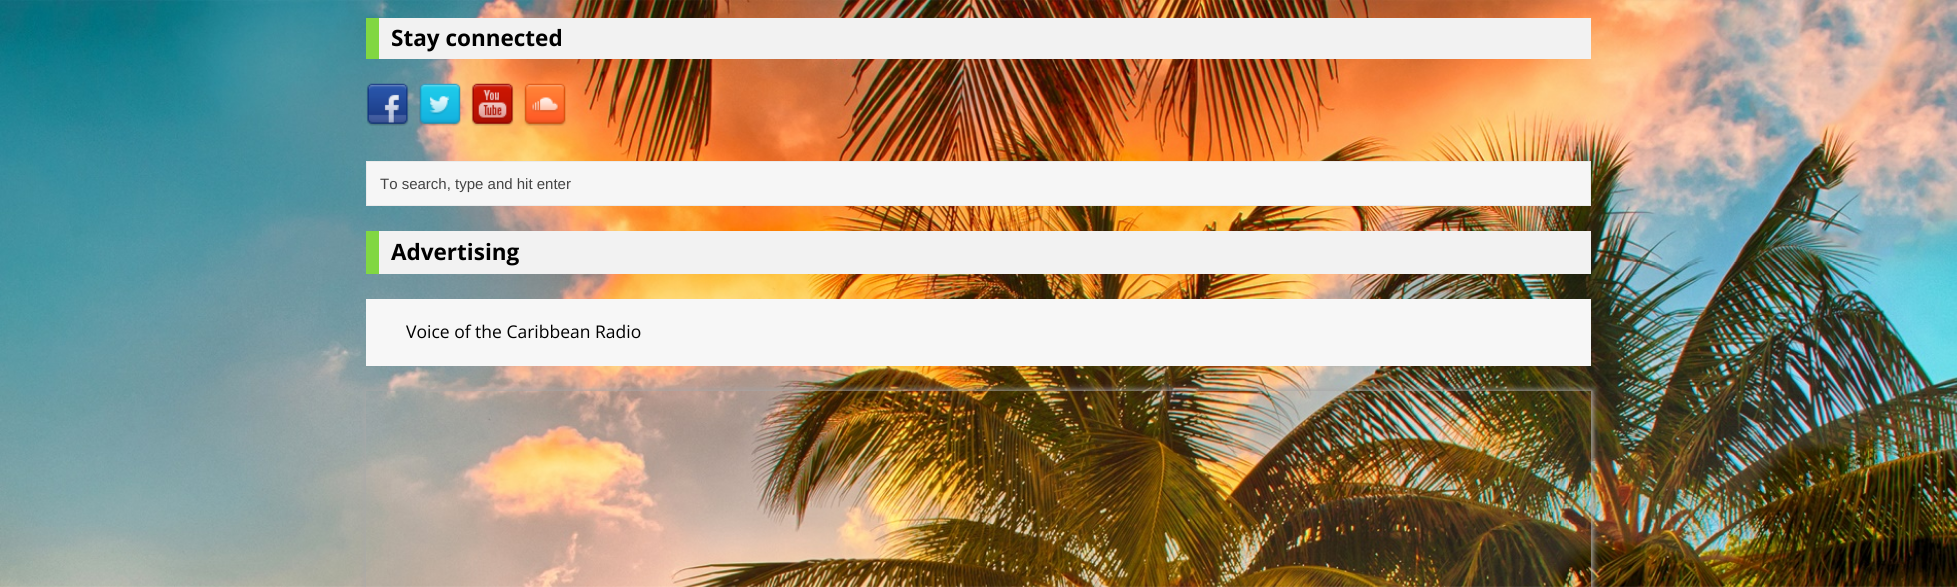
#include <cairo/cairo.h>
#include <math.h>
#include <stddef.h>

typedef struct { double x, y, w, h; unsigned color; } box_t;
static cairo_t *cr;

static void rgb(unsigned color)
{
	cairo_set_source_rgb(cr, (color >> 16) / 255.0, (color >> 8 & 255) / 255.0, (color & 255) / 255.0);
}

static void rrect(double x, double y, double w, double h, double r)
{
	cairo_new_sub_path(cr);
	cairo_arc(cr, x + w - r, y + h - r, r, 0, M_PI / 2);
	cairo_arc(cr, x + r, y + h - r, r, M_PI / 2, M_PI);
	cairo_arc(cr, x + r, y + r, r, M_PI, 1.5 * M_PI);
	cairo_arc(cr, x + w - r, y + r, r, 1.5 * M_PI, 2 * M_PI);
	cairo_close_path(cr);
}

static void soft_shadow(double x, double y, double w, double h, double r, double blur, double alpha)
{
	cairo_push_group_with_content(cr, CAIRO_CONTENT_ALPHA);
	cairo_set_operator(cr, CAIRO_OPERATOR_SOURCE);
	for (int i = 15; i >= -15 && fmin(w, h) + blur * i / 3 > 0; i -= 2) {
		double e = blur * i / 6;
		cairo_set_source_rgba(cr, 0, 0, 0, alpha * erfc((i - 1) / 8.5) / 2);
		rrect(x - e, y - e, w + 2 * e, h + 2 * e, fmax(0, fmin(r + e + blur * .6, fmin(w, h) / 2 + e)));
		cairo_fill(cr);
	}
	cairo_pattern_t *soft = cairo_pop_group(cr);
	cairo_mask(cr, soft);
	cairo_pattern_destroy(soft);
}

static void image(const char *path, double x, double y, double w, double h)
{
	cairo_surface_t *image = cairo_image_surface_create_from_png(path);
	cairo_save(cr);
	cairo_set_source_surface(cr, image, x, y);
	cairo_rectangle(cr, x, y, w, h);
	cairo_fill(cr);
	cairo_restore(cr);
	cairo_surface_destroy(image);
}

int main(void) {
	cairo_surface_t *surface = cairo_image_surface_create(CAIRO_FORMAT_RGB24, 1957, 587);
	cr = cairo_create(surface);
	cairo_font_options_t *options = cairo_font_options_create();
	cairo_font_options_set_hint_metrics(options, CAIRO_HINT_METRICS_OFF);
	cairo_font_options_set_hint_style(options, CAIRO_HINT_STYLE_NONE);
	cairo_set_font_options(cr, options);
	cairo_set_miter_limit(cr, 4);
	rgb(0xffffff);
	cairo_paint(cr);
	image("img/1.png", 0, 0, 1957, 587);
	rgb(0xf2f2f2);
	cairo_rectangle(cr, 379, 18, 1212, 41);
	cairo_fill(cr);
	rgb(0x81d742);
	cairo_rectangle(cr, 366, 18, 13, 41);
	cairo_fill(cr);
	image("img/2.png", 366, 83, 43, 43);
	image("img/3.png", 419, 83, 42, 43);
	image("img/4.png", 471, 83, 43, 43);
	image("img/5.png", 524, 83, 42, 43);
	rgb(0xf6f6f6);
	cairo_rectangle(cr, 366.5, 161.5, 1224, 44);
	cairo_fill_preserve(cr);
	rgb(0xebebeb);
	cairo_set_line_width(cr, 1);
	cairo_stroke(cr);
	{
		static const box_t items[] = {
			{379, 231, 1212, 43, 0xf2f2f2},
			{366, 231, 13, 43, 0x81d742},
			{366, 299, 1225, 67, 0xf7f7f7},
		};
		for (size_t i = 0; i < sizeof items / sizeof *items; i++) {
			rgb(items[i].color);
			cairo_rectangle(cr, items[i].x, items[i].y, items[i].w, items[i].h);
			cairo_fill(cr);
		}
	}
	cairo_save(cr);
	cairo_set_fill_rule(cr, CAIRO_FILL_RULE_EVEN_ODD);
	cairo_new_path(cr);
	cairo_move_to(cr, 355, 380);
	cairo_line_to(cr, 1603, 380);
	cairo_line_to(cr, 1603, 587);
	cairo_line_to(cr, 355, 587);
	cairo_close_path(cr);
	cairo_move_to(cr, 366, 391);
	cairo_line_to(cr, 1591, 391);
	cairo_line_to(cr, 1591, 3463);
	cairo_line_to(cr, 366, 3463);
	cairo_close_path(cr);
	cairo_clip(cr);
	rgb(0xa8a8a8);
	soft_shadow(365, 390, 1228, 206, 0, 3, 1);
	cairo_restore(cr);
	cairo_select_font_face(cr, "Open Sans", CAIRO_FONT_SLANT_NORMAL, CAIRO_FONT_WEIGHT_BOLD);
	cairo_set_font_size(cr, 22.5);
	rgb(0x000000);
	cairo_move_to(cr, 391, 46);
	cairo_show_text(cr, "Stay connected");
	cairo_select_font_face(cr, "Liberation Sans", CAIRO_FONT_SLANT_NORMAL, CAIRO_FONT_WEIGHT_NORMAL);
	cairo_set_font_size(cr, 15);
	rgb(0x444444);
	cairo_move_to(cr, 380, 189);
	cairo_show_text(cr, "To search, type and hit enter");
	cairo_select_font_face(cr, "Open Sans", CAIRO_FONT_SLANT_NORMAL, CAIRO_FONT_WEIGHT_BOLD);
	cairo_set_font_size(cr, 22.5);
	rgb(0x000000);
	cairo_move_to(cr, 391, 260);
	cairo_show_text(cr, "Advertising");
	cairo_select_font_face(cr, "Open Sans", CAIRO_FONT_SLANT_NORMAL, CAIRO_FONT_WEIGHT_NORMAL);
	cairo_set_font_size(cr, 17.5);
	cairo_move_to(cr, 406, 338);
	cairo_show_text(cr, "Voice of the Caribbean Radio");
	cairo_surface_write_to_png(surface, "page.png");
	cairo_font_options_destroy(options);
	cairo_destroy(cr);
	cairo_surface_destroy(surface);
	return 0;
}
